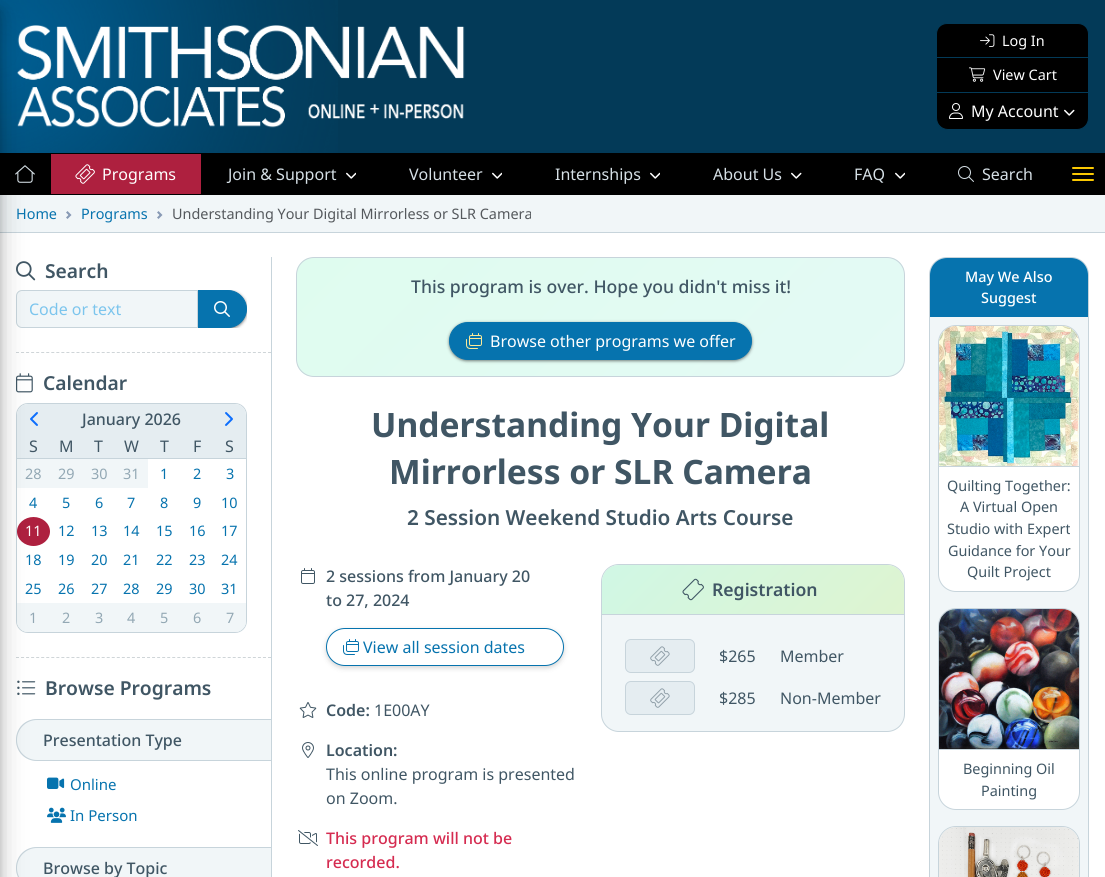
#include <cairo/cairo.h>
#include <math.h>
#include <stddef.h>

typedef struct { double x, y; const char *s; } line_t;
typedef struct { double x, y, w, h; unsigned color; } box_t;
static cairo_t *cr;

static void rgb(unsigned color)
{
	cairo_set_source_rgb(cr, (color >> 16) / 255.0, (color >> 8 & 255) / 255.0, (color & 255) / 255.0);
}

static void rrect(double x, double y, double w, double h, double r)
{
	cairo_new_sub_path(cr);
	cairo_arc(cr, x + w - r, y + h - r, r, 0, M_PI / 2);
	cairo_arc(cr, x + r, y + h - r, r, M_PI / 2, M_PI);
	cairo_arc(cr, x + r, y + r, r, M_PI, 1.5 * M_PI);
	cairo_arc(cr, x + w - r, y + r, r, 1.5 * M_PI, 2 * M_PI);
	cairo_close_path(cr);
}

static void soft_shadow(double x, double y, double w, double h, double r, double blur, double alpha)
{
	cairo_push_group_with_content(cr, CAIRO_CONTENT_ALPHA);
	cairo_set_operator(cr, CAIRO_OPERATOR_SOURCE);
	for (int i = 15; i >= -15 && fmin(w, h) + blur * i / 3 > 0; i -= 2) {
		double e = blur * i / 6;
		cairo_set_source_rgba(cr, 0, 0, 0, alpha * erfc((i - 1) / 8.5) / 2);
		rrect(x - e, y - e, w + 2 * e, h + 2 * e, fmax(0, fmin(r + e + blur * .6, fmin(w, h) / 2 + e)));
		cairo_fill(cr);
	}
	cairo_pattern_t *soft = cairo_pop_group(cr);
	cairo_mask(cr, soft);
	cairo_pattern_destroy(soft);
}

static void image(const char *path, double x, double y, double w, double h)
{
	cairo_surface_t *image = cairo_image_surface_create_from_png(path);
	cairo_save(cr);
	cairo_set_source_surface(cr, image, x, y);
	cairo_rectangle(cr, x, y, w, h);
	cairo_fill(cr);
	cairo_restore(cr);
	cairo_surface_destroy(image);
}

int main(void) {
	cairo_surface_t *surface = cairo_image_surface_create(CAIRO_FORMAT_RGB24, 1105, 877);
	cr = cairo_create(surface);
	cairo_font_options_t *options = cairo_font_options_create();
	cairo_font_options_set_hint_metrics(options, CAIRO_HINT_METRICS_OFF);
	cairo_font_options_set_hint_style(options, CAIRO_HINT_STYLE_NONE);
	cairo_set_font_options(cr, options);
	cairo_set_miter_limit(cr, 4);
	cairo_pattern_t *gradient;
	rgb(0xffffff);
	cairo_paint(cr);
	rgb(0x033a58);
	cairo_rectangle(cr, 0, 0, 1105, 153);
	cairo_fill(cr);
	image("img/1.png", 0, 0, 338, 153);
	rgb(0x000000);
	cairo_rectangle(cr, 0, 153, 1105, 42);
	cairo_fill(cr);
	image("img/7.png", 15, 165, 20, 18);
	rgb(0xf1f6f8);
	cairo_rectangle(cr, 0, 195, 1105, 37);
	cairo_fill(cr);
	rgb(0xc7d4db);
	cairo_rectangle(cr, 0, 232, 1105, 1);
	cairo_fill(cr);
	rgb(0x000000);
	soft_shadow(-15, 10, 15, 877, 0, 5, 0.18);
	image("img/2.png", 17, 25, 448, 103);
	image("img/12.png", 16, 261, 20, 20);
	cairo_save(cr);
	cairo_rectangle(cr, 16, 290, 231, 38);
	cairo_clip(cr);
	rgb(0x171717);
	soft_shadow(197, 291, 50, 38, 19, 1.5, 0.55);
	cairo_restore(cr);
	rgb(0x0673ae);
	cairo_new_path(cr);
	cairo_move_to(cr, 197.5, 290.5);
	cairo_line_to(cr, 228, 290.5);
	cairo_curve_to(cr, 238, 290.5, 246.5, 299, 246.5, 309);
	cairo_curve_to(cr, 246.5, 319, 238, 327.5, 228, 327.5);
	cairo_line_to(cr, 197.5, 327.5);
	cairo_close_path(cr);
	cairo_fill_preserve(cr);
	cairo_set_line_width(cr, 1);
	cairo_stroke(cr);
	rgb(0xf1f6f8);
	cairo_new_path(cr);
	cairo_move_to(cr, 22, 290.5);
	cairo_line_to(cr, 197.5, 290.5);
	cairo_line_to(cr, 197.5, 327.5);
	cairo_line_to(cr, 22, 327.5);
	cairo_curve_to(cr, 19, 327.5, 16.5, 325, 16.5, 322);
	cairo_line_to(cr, 16.5, 296);
	cairo_curve_to(cr, 16.5, 293, 19, 290.5, 22, 290.5);
	cairo_close_path(cr);
	cairo_fill_preserve(cr);
	rgb(0xc7d4db);
	cairo_stroke(cr);
	cairo_new_path(cr);
	cairo_move_to(cr, 16, 352.5);
	cairo_line_to(cr, 271, 352.5);
	rgb(0xcfd5d8);
	cairo_set_dash(cr, (double[]){3, 2.04}, 2, 0);
	cairo_stroke(cr);
	image("img/14.png", 16, 373, 17, 20);
	rrect(16.5, 403.5, 230, 229, 11.5);
	rgb(0xc7d4db);
	cairo_set_dash(cr, NULL, 0, 0);
	cairo_stroke(cr);
	rgb(0xe5edf1);
	rrect(17, 404, 229, 228, 11);
	cairo_fill(cr);
	image("img/15.png", 30, 412, 8, 14);
	{
		static const box_t items[] = {
			{17, 458, 229, 1, 0xc7d4db},
			{17, 459, 131, 29, 0xf1f6f8},
			{17, 488, 229, 29, 0xffffff},
			{17, 517, 229, 29, 0xffffff},
		};
		for (size_t i = 0; i < sizeof items / sizeof *items; i++) {
			rgb(items[i].color);
			cairo_rectangle(cr, items[i].x, items[i].y, items[i].w, items[i].h);
			cairo_fill(cr);
		}
	}
	rgb(0xae203f);
	cairo_new_path(cr);
	cairo_move_to(cr, 33.5, 517);
	cairo_curve_to(cr, 42.5, 517, 50, 523.5, 50, 531.5);
	cairo_curve_to(cr, 50, 539.5, 42.5, 546, 33.5, 546);
	cairo_curve_to(cr, 24.5, 546, 17, 539.5, 17, 531.5);
	cairo_curve_to(cr, 17, 523.5, 24.5, 517, 33.5, 517);
	cairo_close_path(cr);
	cairo_fill(cr);
	rgb(0xffffff);
	cairo_rectangle(cr, 17, 546, 229, 28);
	cairo_fill(cr);
	cairo_rectangle(cr, 17, 574, 229, 29);
	cairo_fill(cr);
	rgb(0xf1f6f8);
	cairo_new_path(cr);
	cairo_move_to(cr, 17, 603);
	cairo_line_to(cr, 50, 603);
	cairo_line_to(cr, 50, 632);
	cairo_line_to(cr, 28, 632);
	cairo_curve_to(cr, 22, 632, 17, 627, 17, 621);
	cairo_close_path(cr);
	cairo_fill(cr);
	cairo_new_path(cr);
	cairo_move_to(cr, 16, 657.5);
	cairo_line_to(cr, 271, 657.5);
	rgb(0xcfd5d8);
	cairo_set_dash(cr, (double[]){3, 2.04}, 2, 0);
	cairo_stroke(cr);
	image("img/17.png", 17, 680, 19, 15);
	rgb(0xf1f6f8);
	cairo_new_path(cr);
	cairo_move_to(cr, 37, 719);
	cairo_line_to(cr, 271, 719);
	cairo_line_to(cr, 271, 761);
	cairo_line_to(cr, 37, 761);
	cairo_curve_to(cr, 25.5, 761, 16, 751.5, 16, 740);
	cairo_curve_to(cr, 16, 728.5, 25.5, 719, 37, 719);
	cairo_close_path(cr);
	cairo_fill(cr);
	rgb(0xc7d4db);
	cairo_set_fill_rule(cr, CAIRO_FILL_RULE_EVEN_ODD);
	cairo_new_path(cr);
	cairo_move_to(cr, 37, 719);
	cairo_line_to(cr, 271, 719);
	cairo_line_to(cr, 271, 761);
	cairo_line_to(cr, 37, 761);
	cairo_curve_to(cr, 25, 761, 16, 752, 16, 740);
	cairo_curve_to(cr, 16, 728, 25, 719, 37, 719);
	cairo_close_path(cr);
	cairo_move_to(cr, 37, 720);
	cairo_line_to(cr, 271, 720);
	cairo_line_to(cr, 271, 760);
	cairo_line_to(cr, 37, 760);
	cairo_curve_to(cr, 26, 760, 17, 751, 17, 740);
	cairo_curve_to(cr, 17, 729, 26, 720, 37, 720);
	cairo_close_path(cr);
	cairo_fill(cr);
	rgb(0xf1f6f8);
	cairo_new_path(cr);
	cairo_move_to(cr, 37, 847);
	cairo_line_to(cr, 271, 847);
	cairo_line_to(cr, 271, 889);
	cairo_line_to(cr, 37, 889);
	cairo_curve_to(cr, 25.5, 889, 16, 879.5, 16, 868);
	cairo_curve_to(cr, 16, 856.5, 25.5, 847, 37, 847);
	cairo_close_path(cr);
	cairo_fill(cr);
	rgb(0xc7d4db);
	cairo_new_path(cr);
	cairo_move_to(cr, 37, 847);
	cairo_line_to(cr, 271, 847);
	cairo_line_to(cr, 271, 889);
	cairo_line_to(cr, 37, 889);
	cairo_curve_to(cr, 25, 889, 16, 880, 16, 868);
	cairo_curve_to(cr, 16, 856, 25, 847, 37, 847);
	cairo_close_path(cr);
	cairo_move_to(cr, 37, 848);
	cairo_line_to(cr, 271, 848);
	cairo_line_to(cr, 271, 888);
	cairo_line_to(cr, 37, 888);
	cairo_curve_to(cr, 26, 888, 17, 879, 17, 868);
	cairo_curve_to(cr, 17, 857, 26, 848, 37, 848);
	cairo_close_path(cr);
	cairo_fill(cr);
	rgb(0x000000);
	soft_shadow(-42, 14, 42, 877, 0, 14, 0.21);
	rgb(0x000000);
	cairo_new_path(cr);
	cairo_move_to(cr, 947, 23.5);
	cairo_line_to(cr, 1078, 23.5);
	cairo_curve_to(cr, 1084, 23.5, 1088.5, 28, 1088.5, 34);
	cairo_line_to(cr, 1088.5, 57.5);
	cairo_line_to(cr, 936.5, 57.5);
	cairo_line_to(cr, 936.5, 34);
	cairo_curve_to(cr, 936.5, 28, 941, 23.5, 947, 23.5);
	cairo_close_path(cr);
	cairo_fill_preserve(cr);
	rgb(0x033a58);
	cairo_set_dash(cr, NULL, 0, 0);
	cairo_stroke(cr);
	image("img/3.png", 980, 34, 15, 13);
	rgb(0x000000);
	cairo_rectangle(cr, 937, 58, 151, 34);
	cairo_fill(cr);
	image("img/4.png", 969, 67, 17, 15);
	cairo_new_path(cr);
	cairo_move_to(cr, 936.5, 92.5);
	cairo_line_to(cr, 1088.5, 92.5);
	cairo_line_to(cr, 1088.5, 118);
	cairo_curve_to(cr, 1088.5, 124.5, 1083.5, 129.5, 1077, 129.5);
	cairo_line_to(cr, 948, 129.5);
	cairo_curve_to(cr, 941.5, 129.5, 936.5, 124.5, 936.5, 118);
	cairo_close_path(cr);
	cairo_fill_preserve(cr);
	rgb(0x033a58);
	cairo_stroke(cr);
	image("img/5.png", 949, 103, 14, 16);
	image("img/6.png", 1064, 109, 11, 7);
	rgb(0xae203f);
	cairo_rectangle(cr, 51, 154, 150, 40);
	cairo_fill(cr);
	image("img/8.png", 75, 164, 20, 20);
	image("img/9.png", 346, 172, 10, 7);
	image("img/9.png", 492, 172, 10, 7);
	image("img/9.png", 650, 172, 10, 7);
	image("img/6.png", 791, 172, 11, 7);
	image("img/9.png", 895, 172, 10, 7);
	image("img/10.png", 958, 166, 16, 16);
	rgb(0xfac802);
	rrect(1072, 173, 22, 2, 1);
	cairo_fill(cr);
	rrect(1072, 167, 22, 2, 1);
	cairo_fill(cr);
	rrect(1072, 179, 22, 2, 1);
	cairo_fill(cr);
	image("img/11.png", 66, 211, 6, 8);
	image("img/11.png", 157, 211, 6, 8);
	rgb(0xc7d4db);
	cairo_rectangle(cr, 271, 257, 1, 620);
	cairo_fill(cr);
	image("img/13.png", 214, 301, 16, 16);
	image("img/16.png", 225, 412, 8, 14);
	rgb(0xffffff);
	cairo_rectangle(cr, 148, 459, 98, 29);
	cairo_fill(cr);
	rgb(0xf1f6f8);
	cairo_rectangle(cr, 50, 603, 163, 29);
	cairo_fill(cr);
	cairo_new_path(cr);
	cairo_move_to(cr, 213, 603);
	cairo_line_to(cr, 246, 603);
	cairo_line_to(cr, 246, 621);
	cairo_curve_to(cr, 246, 627, 241, 632, 235, 632);
	cairo_line_to(cr, 213, 632);
	cairo_close_path(cr);
	cairo_fill(cr);
	image("img/18.png", 47, 777, 18, 12);
	image("img/19.png", 47, 807, 19, 16);
	cairo_save(cr);
	cairo_set_fill_rule(cr, CAIRO_FILL_RULE_WINDING);
	rrect(296, 257, 609, 120, 18);
	cairo_clip(cr);
	gradient = cairo_pattern_create_linear(419, 136, 782, 498);
	cairo_pattern_add_color_stop_rgba(gradient, 0, 0.875, 0.988, 0.937, 1);
	cairo_pattern_add_color_stop_rgba(gradient, 1, 0.894, 0.98, 0.961, 1);
	cairo_set_source(cr, gradient);
	cairo_pattern_destroy(gradient);
	cairo_rectangle(cr, 297, 258, 607, 118);
	cairo_fill(cr);
	cairo_restore(cr);
	rrect(296.5, 257.5, 608, 119, 17.5);
	rgb(0xc7d4db);
	cairo_stroke(cr);
	rgb(0x171717);
	soft_shadow(449, 323, 303, 38, 19, 1.5, 0.55);
	rgb(0x0673ae);
	rrect(449.5, 322.5, 302, 37, 18.5);
	cairo_fill_preserve(cr);
	cairo_stroke(cr);
	image("img/20.png", 466, 333, 16, 16);
	image("img/21.png", 301, 568, 14, 16);
	rgb(0x171717);
	soft_shadow(326, 630, 238, 38, 19, 2.5, 0.18);
	rgb(0xffffff);
	rrect(326.5, 628.5, 237, 37, 18.5);
	cairo_fill_preserve(cr);
	rgb(0x0673ae);
	cairo_stroke(cr);
	image("img/22.png", 343, 639, 16, 16);
	image("img/23.png", 299, 702, 18, 16);
	image("img/24.png", 302, 742, 12, 16);
	image("img/25.png", 298, 830, 20, 16);
	rgb(0xf1f6f8);
	rrect(601.5, 564.5, 303, 167, 17.5);
	cairo_fill_preserve(cr);
	rgb(0xc7d4db);
	cairo_stroke(cr);
	gradient = cairo_pattern_create_linear(665, 502, 841, 677);
	cairo_pattern_add_color_stop_rgba(gradient, 0, 0.816, 0.969, 0.898, 1);
	cairo_pattern_add_color_stop_rgba(gradient, 1, 0.871, 0.957, 0.816, 1);
	cairo_set_source(cr, gradient);
	cairo_pattern_destroy(gradient);
	cairo_new_path(cr);
	cairo_move_to(cr, 619, 565);
	cairo_line_to(cr, 887, 565);
	cairo_curve_to(cr, 896.5, 565, 904, 572.5, 904, 582);
	cairo_line_to(cr, 904, 614);
	cairo_line_to(cr, 602, 614);
	cairo_line_to(cr, 602, 582);
	cairo_curve_to(cr, 602, 572.5, 609.5, 565, 619, 565);
	cairo_close_path(cr);
	cairo_fill(cr);
	rgb(0xc7d4db);
	cairo_rectangle(cr, 602, 614, 302, 1);
	cairo_fill(cr);
	image("img/26.png", 682, 578, 22, 23);
	rgb(0xe5edf1);
	rrect(625.5, 639.5, 69, 33, 5.5);
	cairo_fill_preserve(cr);
	rgb(0xc7d4db);
	cairo_stroke(cr);
	image("img/27.png", 650, 646, 20, 20);
	rgb(0xe5edf1);
	rrect(625.5, 681.5, 69, 33, 5.5);
	cairo_fill_preserve(cr);
	rgb(0xc7d4db);
	cairo_stroke(cr);
	image("img/27.png", 650, 688, 20, 20);
	rgb(0xf1f6f8);
	rrect(929.5, 257.5, 159, 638, 17.5);
	cairo_fill_preserve(cr);
	rgb(0xc7d4db);
	cairo_stroke(cr);
	rgb(0x0673ae);
	cairo_new_path(cr);
	cairo_move_to(cr, 947, 258);
	cairo_line_to(cr, 1071, 258);
	cairo_curve_to(cr, 1080.5, 258, 1088, 265.5, 1088, 275);
	cairo_line_to(cr, 1088, 317);
	cairo_line_to(cr, 930, 317);
	cairo_line_to(cr, 930, 275);
	cairo_curve_to(cr, 930, 265.5, 937.5, 258, 947, 258);
	cairo_close_path(cr);
	cairo_fill(cr);
	rgb(0xffffff);
	rrect(938.5, 325.5, 141, 266, 17.5);
	cairo_fill_preserve(cr);
	rgb(0xc7d4db);
	cairo_stroke(cr);
	image("img/28.png", 939, 326, 140, 140);
	cairo_rectangle(cr, 939, 466, 140, 1);
	cairo_fill(cr);
	rgb(0xffffff);
	rrect(938.5, 608.5, 141, 201, 17.5);
	cairo_fill_preserve(cr);
	rgb(0xc7d4db);
	cairo_stroke(cr);
	image("img/29.png", 939, 609, 140, 140);
	cairo_rectangle(cr, 939, 749, 140, 1);
	cairo_fill(cr);
	rrect(938.5, 826.5, 141, 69, 17.5);
	cairo_stroke(cr);
	image("img/30.png", 939, 827, 140, 50);
	cairo_select_font_face(cr, "Noto Sans", CAIRO_FONT_SLANT_NORMAL, CAIRO_FONT_WEIGHT_NORMAL);
	cairo_set_font_size(cr, 14.4);
	rgb(0xffffff);
	cairo_move_to(cr, 1002, 46);
	cairo_show_text(cr, "Log In");
	cairo_move_to(cr, 993, 80);
	cairo_show_text(cr, "View Cart");
	cairo_set_font_size(cr, 16);
	cairo_move_to(cr, 971, 117);
	cairo_show_text(cr, "My Account");
	cairo_move_to(cr, 102, 180);
	cairo_show_text(cr, "Programs");
	rgb(0xd6e0e6);
	{
		static const line_t items[] = {
			{228, 180, "Join & Support"},
			{409, 180, "Volunteer"},
			{555, 180, "Internships"},
			{713, 180, "About Us"},
			{854, 180, "FAQ"},
			{982, 180, "Search"},
		};
		for (size_t i = 0; i < sizeof items / sizeof *items; i++) {
			cairo_move_to(cr, items[i].x, items[i].y);
			cairo_show_text(cr, items[i].s);
		}
	}
	cairo_set_font_size(cr, 14.4);
	rgb(0x0673ae);
	cairo_move_to(cr, 16, 219);
	cairo_show_text(cr, "Home");
	cairo_move_to(cr, 81, 219);
	cairo_show_text(cr, "Programs");
	rgb(0x55595d);
	cairo_move_to(cr, 172, 219);
	cairo_show_text(cr, "Understanding Your Digital Mirrorless or SLR Camera");
	cairo_select_font_face(cr, "Noto Sans SemiBold", CAIRO_FONT_SLANT_NORMAL, CAIRO_FONT_WEIGHT_NORMAL);
	cairo_set_font_size(cr, 19.25);
	rgb(0x405664);
	cairo_move_to(cr, 45, 278);
	cairo_show_text(cr, "Search");
	cairo_select_font_face(cr, "Noto Sans", CAIRO_FONT_SLANT_NORMAL, CAIRO_FONT_WEIGHT_NORMAL);
	cairo_set_font_size(cr, 16);
	rgb(0x7cc5ed);
	cairo_move_to(cr, 29, 315);
	cairo_show_text(cr, "Code or text");
	cairo_select_font_face(cr, "Noto Sans SemiBold", CAIRO_FONT_SLANT_NORMAL, CAIRO_FONT_WEIGHT_NORMAL);
	cairo_set_font_size(cr, 19.25);
	rgb(0x405664);
	cairo_move_to(cr, 43, 390);
	cairo_show_text(cr, "Calendar");
	cairo_select_font_face(cr, "Noto Sans Medium", CAIRO_FONT_SLANT_NORMAL, CAIRO_FONT_WEIGHT_NORMAL);
	cairo_set_font_size(cr, 16);
	cairo_move_to(cr, 82, 425);
	cairo_show_text(cr, "January 2026");
	cairo_select_font_face(cr, "Noto Sans", CAIRO_FONT_SLANT_NORMAL, CAIRO_FONT_WEIGHT_NORMAL);
	{
		static const line_t items[] = {
			{29, 452, "S"},
			{59, 452, "M"},
			{94, 452, "T"},
			{124, 452, "W"},
			{160, 452, "T"},
			{193, 452, "F"},
			{225, 452, "S"},
		};
		for (size_t i = 0; i < sizeof items / sizeof *items; i++) {
			cairo_move_to(cr, items[i].x, items[i].y);
			cairo_show_text(cr, items[i].s);
		}
	}
	cairo_set_font_size(cr, 14.4);
	rgb(0x93a8b4);
	{
		static const line_t items[] = {
			{25, 479, "28"},
			{58, 479, "29"},
			{91, 479, "30"},
			{123, 479, "31"},
		};
		for (size_t i = 0; i < sizeof items / sizeof *items; i++) {
			cairo_move_to(cr, items[i].x, items[i].y);
			cairo_show_text(cr, items[i].s);
		}
	}
	rgb(0x0673ae);
	{
		static const line_t items[] = {
			{160, 479, "1"},
			{193, 479, "2"},
			{226, 479, "3"},
			{29, 508, "4"},
			{62, 508, "5"},
			{95, 508, "6"},
			{127, 508, "7"},
			{160, 508, "8"},
			{193, 508, "9"},
			{221, 508, "10"},
		};
		for (size_t i = 0; i < sizeof items / sizeof *items; i++) {
			cairo_move_to(cr, items[i].x, items[i].y);
			cairo_show_text(cr, items[i].s);
		}
	}
	rgb(0xffffff);
	cairo_move_to(cr, 25, 536);
	cairo_show_text(cr, "11");
	rgb(0x0673ae);
	{
		static const line_t items[] = {
			{58, 536, "12"},
			{91, 536, "13"},
			{123, 536, "14"},
			{156, 536, "15"},
			{189, 536, "16"},
			{221, 536, "17"},
			{25, 565, "18"},
			{58, 565, "19"},
			{91, 565, "20"},
			{123, 565, "21"},
			{156, 565, "22"},
			{189, 565, "23"},
			{221, 565, "24"},
			{25, 594, "25"},
			{58, 594, "26"},
			{91, 594, "27"},
			{123, 594, "28"},
			{156, 594, "29"},
			{189, 594, "30"},
			{221, 594, "31"},
		};
		for (size_t i = 0; i < sizeof items / sizeof *items; i++) {
			cairo_move_to(cr, items[i].x, items[i].y);
			cairo_show_text(cr, items[i].s);
		}
	}
	rgb(0x93a8b4);
	{
		static const line_t items[] = {
			{29, 623, "1"},
			{62, 623, "2"},
			{95, 623, "3"},
			{127, 623, "4"},
			{160, 623, "5"},
			{193, 623, "6"},
			{226, 623, "7"},
		};
		for (size_t i = 0; i < sizeof items / sizeof *items; i++) {
			cairo_move_to(cr, items[i].x, items[i].y);
			cairo_show_text(cr, items[i].s);
		}
	}
	cairo_select_font_face(cr, "Noto Sans SemiBold", CAIRO_FONT_SLANT_NORMAL, CAIRO_FONT_WEIGHT_NORMAL);
	cairo_set_font_size(cr, 19.25);
	rgb(0x405664);
	cairo_move_to(cr, 45, 695);
	cairo_show_text(cr, "Browse Programs");
	cairo_select_font_face(cr, "Noto Sans Medium", CAIRO_FONT_SLANT_NORMAL, CAIRO_FONT_WEIGHT_NORMAL);
	cairo_set_font_size(cr, 16);
	cairo_move_to(cr, 43, 746);
	cairo_show_text(cr, "Presentation Type");
	cairo_select_font_face(cr, "Noto Sans", CAIRO_FONT_SLANT_NORMAL, CAIRO_FONT_WEIGHT_NORMAL);
	cairo_set_font_size(cr, 15);
	rgb(0x0673ae);
	cairo_move_to(cr, 70, 790);
	cairo_show_text(cr, "Online");
	cairo_move_to(cr, 70, 821);
	cairo_show_text(cr, "In Person");
	cairo_select_font_face(cr, "Noto Sans Medium", CAIRO_FONT_SLANT_NORMAL, CAIRO_FONT_WEIGHT_NORMAL);
	cairo_set_font_size(cr, 16);
	rgb(0x405664);
	cairo_move_to(cr, 43, 874);
	cairo_show_text(cr, "Browse by Topic");
	cairo_select_font_face(cr, "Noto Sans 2 Medium", CAIRO_FONT_SLANT_NORMAL, CAIRO_FONT_WEIGHT_NORMAL);
	cairo_set_font_size(cr, 17.6);
	cairo_move_to(cr, 411, 293);
	cairo_show_text(cr, "This program is over. Hope you didn't miss it!");
	cairo_select_font_face(cr, "Noto Sans", CAIRO_FONT_SLANT_NORMAL, CAIRO_FONT_WEIGHT_NORMAL);
	cairo_set_font_size(cr, 16);
	rgb(0xffffff);
	cairo_move_to(cr, 490, 347);
	cairo_show_text(cr, "Browse other programs we offer");
	cairo_select_font_face(cr, "Noto Sans", CAIRO_FONT_SLANT_NORMAL, CAIRO_FONT_WEIGHT_BOLD);
	cairo_set_font_size(cr, 33.6);
	rgb(0x405664);
	cairo_move_to(cr, 371, 437);
	cairo_show_text(cr, "Understanding Your Digital");
	cairo_move_to(cr, 389, 484);
	cairo_show_text(cr, "Mirrorless or SLR Camera");
	cairo_select_font_face(cr, "Noto Sans 2 SemiBold", CAIRO_FONT_SLANT_NORMAL, CAIRO_FONT_WEIGHT_NORMAL);
	cairo_set_font_size(cr, 20.75);
	cairo_move_to(cr, 407, 525);
	cairo_show_text(cr, "2 Session Weekend Studio Arts Course");
	cairo_select_font_face(cr, "Noto Sans Medium", CAIRO_FONT_SLANT_NORMAL, CAIRO_FONT_WEIGHT_NORMAL);
	cairo_set_font_size(cr, 16);
	cairo_move_to(cr, 326, 582);
	cairo_show_text(cr, "2 sessions from January 20");
	cairo_move_to(cr, 326, 606);
	cairo_show_text(cr, "to 27, 2024");
	cairo_select_font_face(cr, "Noto Sans", CAIRO_FONT_SLANT_NORMAL, CAIRO_FONT_WEIGHT_NORMAL);
	rgb(0x0673ae);
	cairo_move_to(cr, 363, 653);
	cairo_show_text(cr, "View all session dates");
	cairo_select_font_face(cr, "Noto Sans SemiBold", CAIRO_FONT_SLANT_NORMAL, CAIRO_FONT_WEIGHT_NORMAL);
	rgb(0x405664);
	cairo_move_to(cr, 326, 716);
	cairo_show_text(cr, "Code:");
	cairo_select_font_face(cr, "Noto Sans", CAIRO_FONT_SLANT_NORMAL, CAIRO_FONT_WEIGHT_NORMAL);
	cairo_move_to(cr, 374, 716);
	cairo_show_text(cr, "1E00AY");
	cairo_select_font_face(cr, "Noto Sans SemiBold", CAIRO_FONT_SLANT_NORMAL, CAIRO_FONT_WEIGHT_NORMAL);
	cairo_move_to(cr, 326, 756);
	cairo_show_text(cr, "Location:");
	cairo_select_font_face(cr, "Noto Sans", CAIRO_FONT_SLANT_NORMAL, CAIRO_FONT_WEIGHT_NORMAL);
	cairo_move_to(cr, 326, 780);
	cairo_show_text(cr, "This online program is presented");
	cairo_move_to(cr, 326, 804);
	cairo_show_text(cr, "on Zoom.");
	cairo_select_font_face(cr, "Noto Sans Medium", CAIRO_FONT_SLANT_NORMAL, CAIRO_FONT_WEIGHT_NORMAL);
	rgb(0xd52b50);
	cairo_move_to(cr, 326, 844);
	cairo_show_text(cr, "This program will not be");
	cairo_move_to(cr, 326, 868);
	cairo_show_text(cr, "recorded.");
	cairo_select_font_face(cr, "Noto Sans 2 SemiBold", CAIRO_FONT_SLANT_NORMAL, CAIRO_FONT_WEIGHT_NORMAL);
	cairo_set_font_size(cr, 17.6);
	rgb(0x405664);
	cairo_move_to(cr, 712, 596);
	cairo_show_text(cr, "Registration");
	cairo_select_font_face(cr, "Noto Sans", CAIRO_FONT_SLANT_NORMAL, CAIRO_FONT_WEIGHT_NORMAL);
	cairo_set_font_size(cr, 16);
	{
		static const line_t items[] = {
			{719, 662, "$265"},
			{780, 662, "Member"},
			{719, 704, "$285"},
			{780, 704, "Non-Member"},
		};
		for (size_t i = 0; i < sizeof items / sizeof *items; i++) {
			cairo_move_to(cr, items[i].x, items[i].y);
			cairo_show_text(cr, items[i].s);
		}
	}
	cairo_select_font_face(cr, "Noto Sans Medium", CAIRO_FONT_SLANT_NORMAL, CAIRO_FONT_WEIGHT_NORMAL);
	cairo_set_font_size(cr, 14.4);
	rgb(0xffffff);
	cairo_move_to(cr, 965, 282);
	cairo_show_text(cr, "May We Also");
	cairo_move_to(cr, 981, 303);
	cairo_show_text(cr, "Suggest");
	cairo_select_font_face(cr, "Noto Sans", CAIRO_FONT_SLANT_NORMAL, CAIRO_FONT_WEIGHT_NORMAL);
	rgb(0x405664);
	{
		static const line_t items[] = {
			{947, 491, "Quilting Together:"},
			{960, 512, "A Virtual Open"},
			{947, 534, "Studio with Expert"},
			{948, 556, "Guidance for Your"},
			{967, 577, "Quilt Project"},
			{963, 774, "Beginning Oil"},
			{981, 796, "Painting"},
		};
		for (size_t i = 0; i < sizeof items / sizeof *items; i++) {
			cairo_move_to(cr, items[i].x, items[i].y);
			cairo_show_text(cr, items[i].s);
		}
	}
	cairo_surface_write_to_png(surface, "page.png");
	cairo_font_options_destroy(options);
	cairo_destroy(cr);
	cairo_surface_destroy(surface);
	return 0;
}
